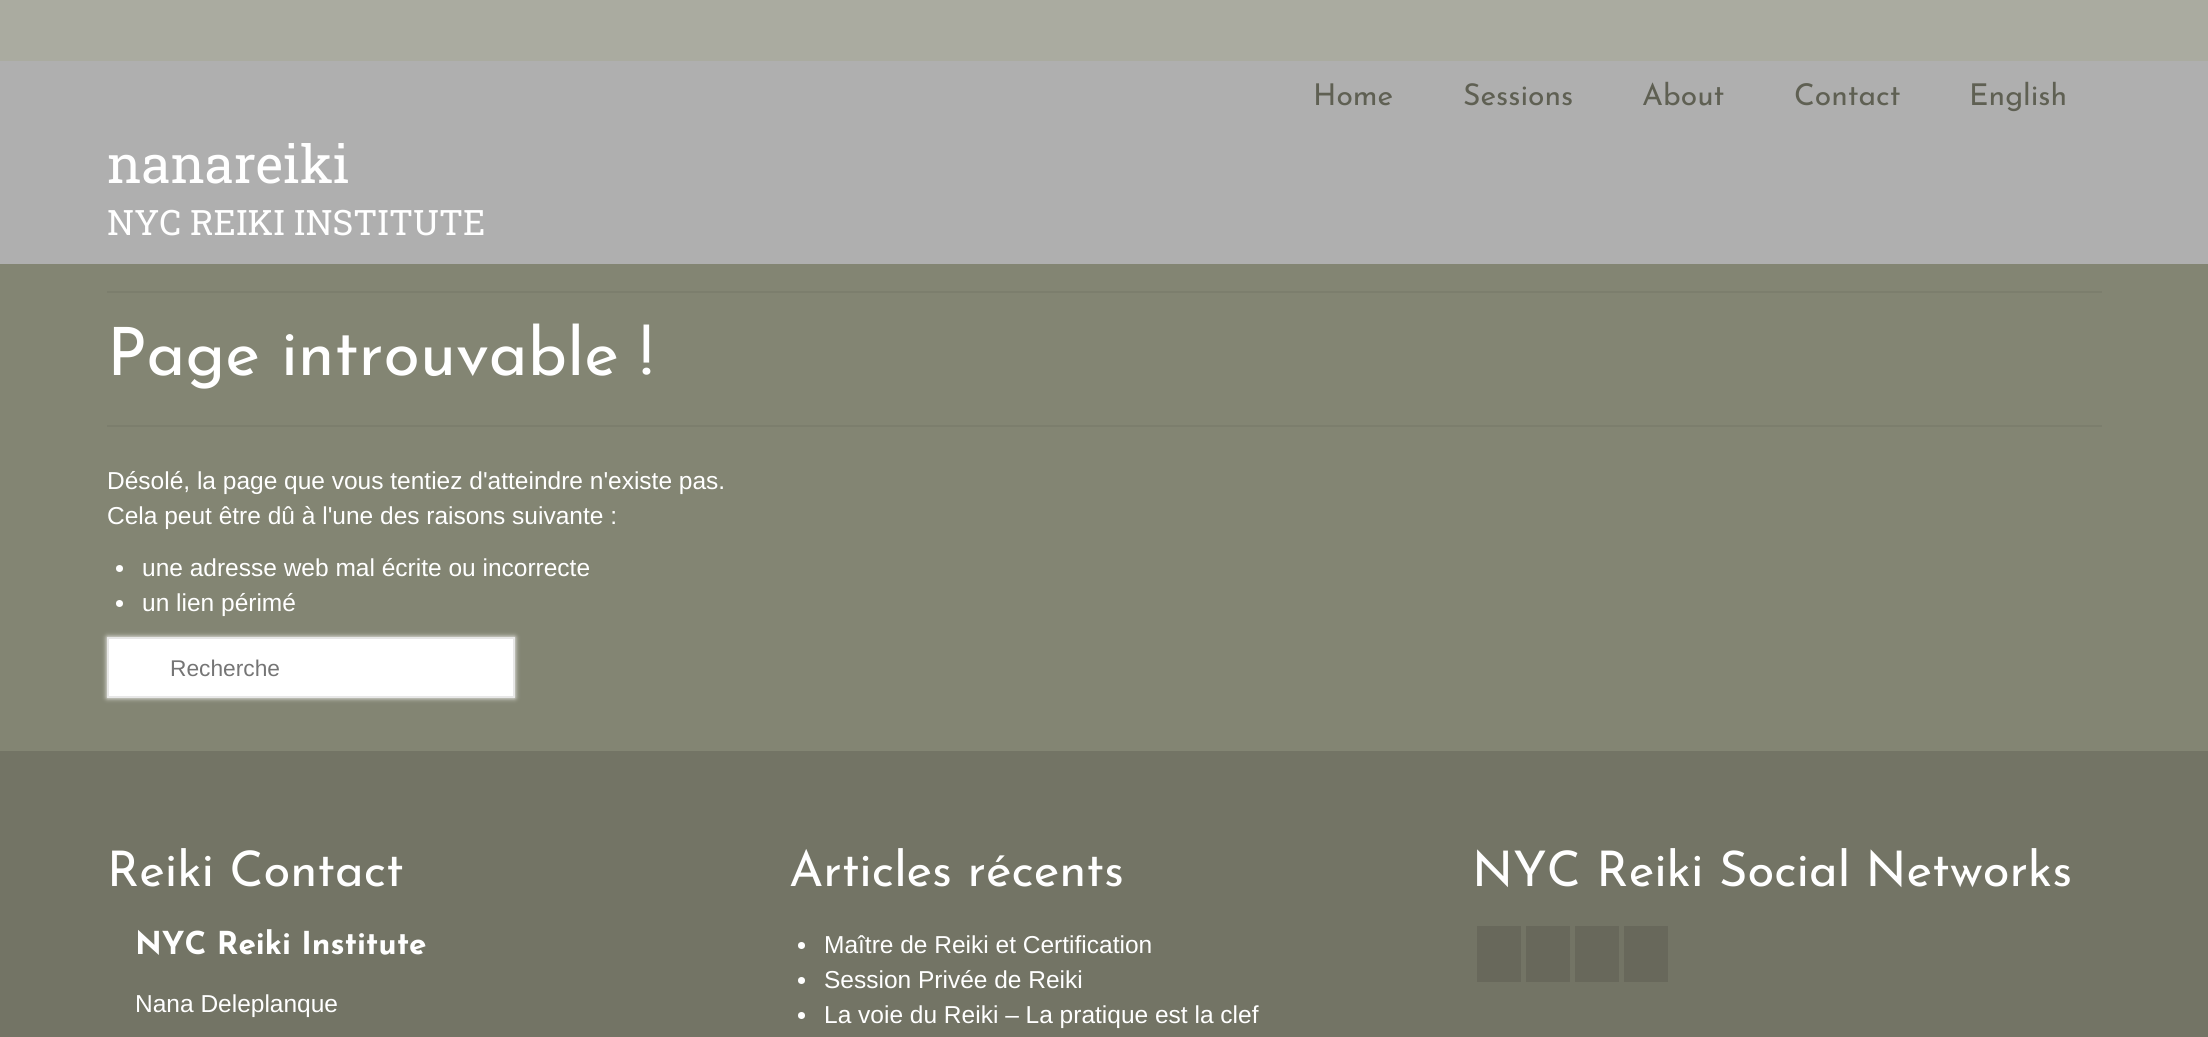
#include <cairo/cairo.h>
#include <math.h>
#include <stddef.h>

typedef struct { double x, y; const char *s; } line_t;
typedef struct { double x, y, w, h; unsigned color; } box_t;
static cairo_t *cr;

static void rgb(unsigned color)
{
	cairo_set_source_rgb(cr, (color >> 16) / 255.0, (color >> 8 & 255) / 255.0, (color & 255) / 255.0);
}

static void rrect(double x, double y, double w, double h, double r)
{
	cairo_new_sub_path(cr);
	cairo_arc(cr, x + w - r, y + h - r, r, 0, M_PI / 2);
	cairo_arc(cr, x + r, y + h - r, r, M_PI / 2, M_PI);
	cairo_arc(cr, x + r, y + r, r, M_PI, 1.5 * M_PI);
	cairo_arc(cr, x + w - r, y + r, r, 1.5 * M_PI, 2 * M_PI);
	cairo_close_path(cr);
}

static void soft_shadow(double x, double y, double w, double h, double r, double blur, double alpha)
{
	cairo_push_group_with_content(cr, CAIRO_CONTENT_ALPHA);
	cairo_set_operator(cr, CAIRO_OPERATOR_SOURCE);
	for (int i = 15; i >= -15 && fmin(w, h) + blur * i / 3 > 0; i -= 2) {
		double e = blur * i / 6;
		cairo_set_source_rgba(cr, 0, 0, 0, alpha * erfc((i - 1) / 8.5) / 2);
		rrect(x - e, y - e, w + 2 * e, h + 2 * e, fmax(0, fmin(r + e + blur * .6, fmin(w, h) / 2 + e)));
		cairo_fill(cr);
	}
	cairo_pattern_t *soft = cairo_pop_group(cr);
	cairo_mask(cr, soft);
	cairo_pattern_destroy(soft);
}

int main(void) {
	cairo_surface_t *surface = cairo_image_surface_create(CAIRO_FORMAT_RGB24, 2208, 1037);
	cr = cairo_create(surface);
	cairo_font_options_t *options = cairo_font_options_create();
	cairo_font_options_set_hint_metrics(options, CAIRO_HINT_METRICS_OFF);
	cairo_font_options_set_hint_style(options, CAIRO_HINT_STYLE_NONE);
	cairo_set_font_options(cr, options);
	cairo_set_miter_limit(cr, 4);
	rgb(0x838573);
	cairo_paint(cr);
	{
		static const box_t items[] = {
			{0, 61, 2208, 203, 0xafafaf},
			{0, 0, 2208, 61, 0xaaaba0},
			{107, 291, 1995, 2, 0x7c7e6d},
			{107, 425, 1995, 2, 0x7c7e6d},
		};
		for (size_t i = 0; i < sizeof items / sizeof *items; i++) {
			rgb(items[i].color);
			cairo_rectangle(cr, items[i].x, items[i].y, items[i].w, items[i].h);
			cairo_fill(cr);
		}
	}
	rgb(0xffffff);
	cairo_arc(cr, 119.5, 568.5, 3.5, 0, 2 * M_PI);
	cairo_fill(cr);
	cairo_arc(cr, 119.5, 603.5, 3.5, 0, 2 * M_PI);
	cairo_fill(cr);
	rgb(0xffffff);
	soft_shadow(107, 637, 408, 61, 0, 2.5, 1);
	rgb(0xffffff);
	cairo_rectangle(cr, 108, 638, 406, 59);
	cairo_fill_preserve(cr);
	rgb(0xe7e7e7);
	cairo_stroke(cr);
	rgb(0x737465);
	cairo_rectangle(cr, 0, 751, 2208, 286);
	cairo_fill(cr);
	rgb(0xffffff);
	cairo_arc(cr, 801.5, 945.5, 3.5, 0, 2 * M_PI);
	cairo_fill(cr);
	cairo_arc(cr, 801.5, 980.5, 3.5, 0, 2 * M_PI);
	cairo_fill(cr);
	cairo_arc(cr, 801.5, 1015.5, 3.5, 0, 2 * M_PI);
	cairo_fill(cr);
	{
		static const box_t items[] = {
			{1477, 926, 44, 56, 0x68685b},
			{1526, 926, 44, 56, 0x68685b},
			{1575, 926, 44, 56, 0x68685b},
			{1624, 926, 44, 56, 0x68685b},
		};
		for (size_t i = 0; i < sizeof items / sizeof *items; i++) {
			rgb(items[i].color);
			cairo_rectangle(cr, items[i].x, items[i].y, items[i].w, items[i].h);
			cairo_fill(cr);
		}
	}
	cairo_select_font_face(cr, "Josefin Sans", CAIRO_FONT_SLANT_NORMAL, CAIRO_FONT_WEIGHT_NORMAL);
	cairo_set_font_size(cr, 30);
	rgb(0x5f6053);
	{
		static const line_t items[] = {
			{1313, 105, "Home"},
			{1463, 105, "Sessions"},
			{1642, 105, "About"},
			{1794, 105, "Contact"},
			{1969, 105, "English"},
		};
		for (size_t i = 0; i < sizeof items / sizeof *items; i++) {
			cairo_move_to(cr, items[i].x, items[i].y);
			cairo_show_text(cr, items[i].s);
		}
	}
	cairo_select_font_face(cr, "Roboto Slab", CAIRO_FONT_SLANT_NORMAL, CAIRO_FONT_WEIGHT_NORMAL);
	cairo_set_font_size(cr, 52.5);
	rgb(0xffffff);
	cairo_move_to(cr, 107, 183);
	cairo_show_text(cr, "nanareiki");
	cairo_set_font_size(cr, 35);
	cairo_move_to(cr, 107, 235);
	cairo_show_text(cr, "NYC REIKI INSTITUTE");
	cairo_select_font_face(cr, "Josefin Sans", CAIRO_FONT_SLANT_NORMAL, CAIRO_FONT_WEIGHT_NORMAL);
	cairo_set_font_size(cr, 66.5);
	cairo_move_to(cr, 107, 375);
	cairo_show_text(cr, "Page introuvable !");
	cairo_select_font_face(cr, "Liberation Sans", CAIRO_FONT_SLANT_NORMAL, CAIRO_FONT_WEIGHT_NORMAL);
	cairo_set_font_size(cr, 24.5);
	{
		static const line_t items[] = {
			{107, 489, "Désolé, la page que vous tentiez d'atteindre n'existe pas."},
			{107, 524, "Cela peut être dû à l'une des raisons suivante :"},
			{142, 576, "une adresse web mal écrite ou incorrecte"},
			{142, 611, "un lien périmé"},
		};
		for (size_t i = 0; i < sizeof items / sizeof *items; i++) {
			cairo_move_to(cr, items[i].x, items[i].y);
			cairo_show_text(cr, items[i].s);
		}
	}
	cairo_set_font_size(cr, 22.75);
	rgb(0x757575);
	cairo_move_to(cr, 170, 676);
	cairo_show_text(cr, "Recherche");
	cairo_select_font_face(cr, "Josefin Sans", CAIRO_FONT_SLANT_NORMAL, CAIRO_FONT_WEIGHT_NORMAL);
	cairo_set_font_size(cr, 49);
	rgb(0xffffff);
	cairo_move_to(cr, 107, 886);
	cairo_show_text(cr, "Reiki Contact");
	cairo_select_font_face(cr, "Josefin Sans", CAIRO_FONT_SLANT_NORMAL, CAIRO_FONT_WEIGHT_BOLD);
	cairo_set_font_size(cr, 31.5);
	cairo_move_to(cr, 135, 954);
	cairo_show_text(cr, "NYC Reiki Institute");
	cairo_select_font_face(cr, "Liberation Sans", CAIRO_FONT_SLANT_NORMAL, CAIRO_FONT_WEIGHT_NORMAL);
	cairo_set_font_size(cr, 24.5);
	cairo_move_to(cr, 135, 1012);
	cairo_show_text(cr, "Nana Deleplanque");
	cairo_select_font_face(cr, "Josefin Sans", CAIRO_FONT_SLANT_NORMAL, CAIRO_FONT_WEIGHT_NORMAL);
	cairo_set_font_size(cr, 49);
	cairo_move_to(cr, 789, 886);
	cairo_show_text(cr, "Articles récents");
	cairo_select_font_face(cr, "Liberation Sans", CAIRO_FONT_SLANT_NORMAL, CAIRO_FONT_WEIGHT_NORMAL);
	cairo_set_font_size(cr, 24.5);
	{
		static const line_t items[] = {
			{824, 953, "Maître de Reiki et Certification"},
			{824, 988, "Session Privée de Reiki"},
			{824, 1023, "La voie du Reiki – La pratique est la clef"},
		};
		for (size_t i = 0; i < sizeof items / sizeof *items; i++) {
			cairo_move_to(cr, items[i].x, items[i].y);
			cairo_show_text(cr, items[i].s);
		}
	}
	cairo_select_font_face(cr, "Josefin Sans", CAIRO_FONT_SLANT_NORMAL, CAIRO_FONT_WEIGHT_NORMAL);
	cairo_set_font_size(cr, 49);
	cairo_move_to(cr, 1472, 886);
	cairo_show_text(cr, "NYC Reiki Social Networks");
	cairo_surface_write_to_png(surface, "page.png");
	cairo_font_options_destroy(options);
	cairo_destroy(cr);
	cairo_surface_destroy(surface);
	return 0;
}
